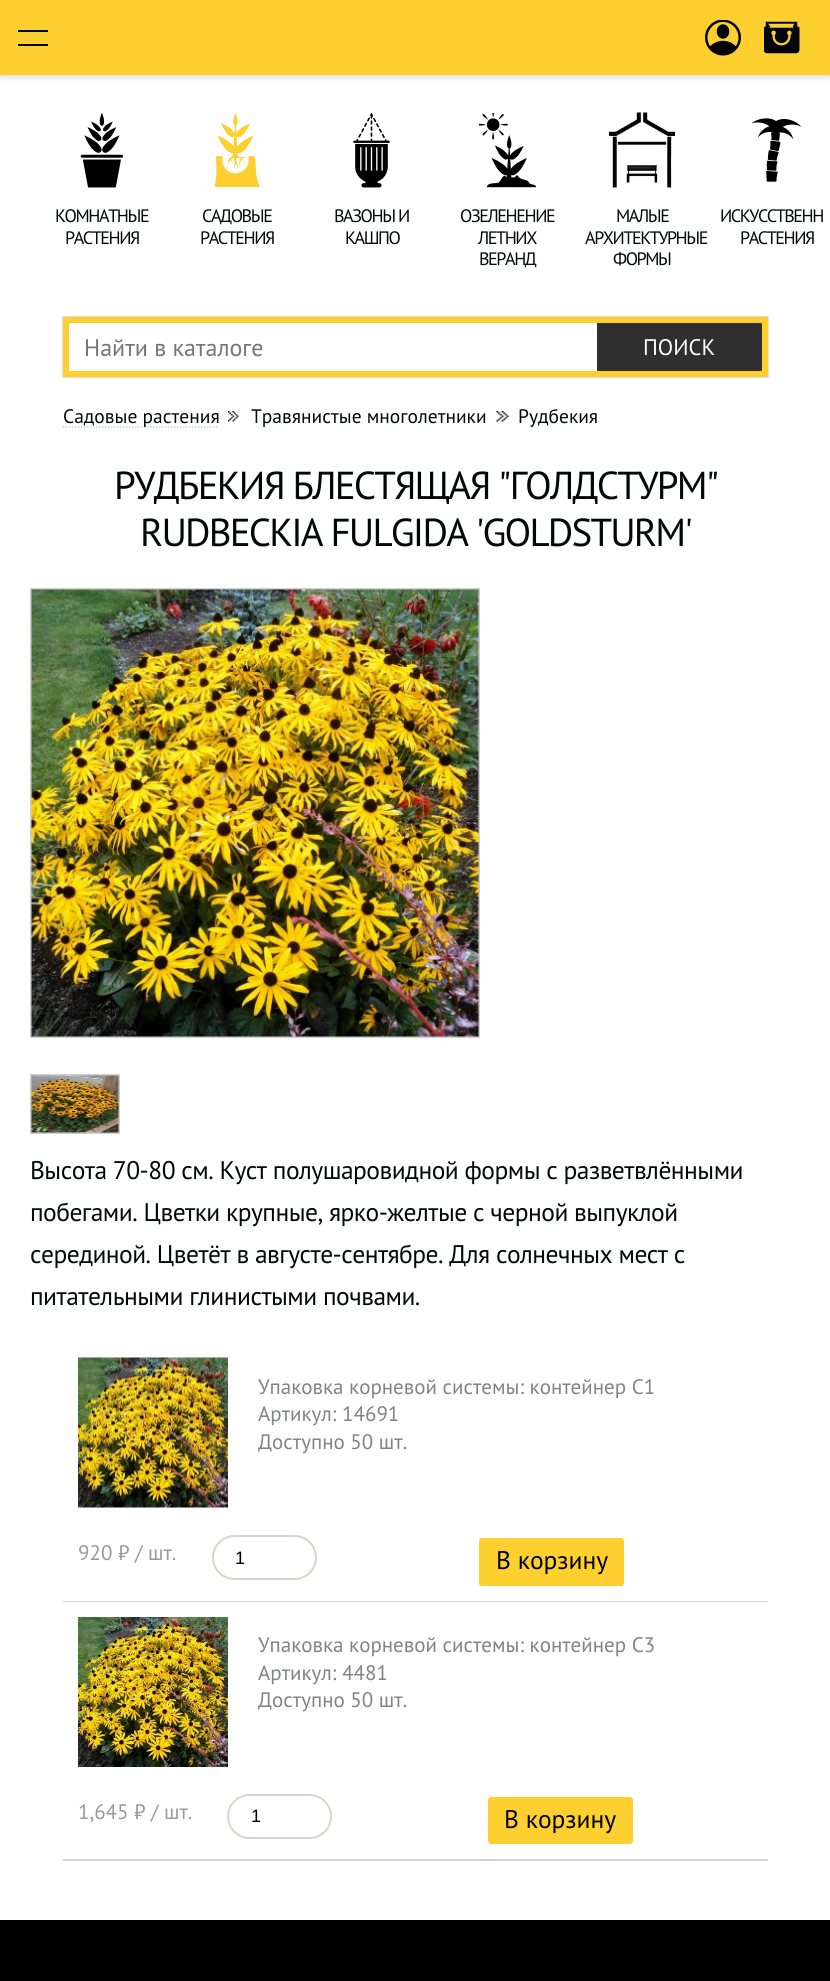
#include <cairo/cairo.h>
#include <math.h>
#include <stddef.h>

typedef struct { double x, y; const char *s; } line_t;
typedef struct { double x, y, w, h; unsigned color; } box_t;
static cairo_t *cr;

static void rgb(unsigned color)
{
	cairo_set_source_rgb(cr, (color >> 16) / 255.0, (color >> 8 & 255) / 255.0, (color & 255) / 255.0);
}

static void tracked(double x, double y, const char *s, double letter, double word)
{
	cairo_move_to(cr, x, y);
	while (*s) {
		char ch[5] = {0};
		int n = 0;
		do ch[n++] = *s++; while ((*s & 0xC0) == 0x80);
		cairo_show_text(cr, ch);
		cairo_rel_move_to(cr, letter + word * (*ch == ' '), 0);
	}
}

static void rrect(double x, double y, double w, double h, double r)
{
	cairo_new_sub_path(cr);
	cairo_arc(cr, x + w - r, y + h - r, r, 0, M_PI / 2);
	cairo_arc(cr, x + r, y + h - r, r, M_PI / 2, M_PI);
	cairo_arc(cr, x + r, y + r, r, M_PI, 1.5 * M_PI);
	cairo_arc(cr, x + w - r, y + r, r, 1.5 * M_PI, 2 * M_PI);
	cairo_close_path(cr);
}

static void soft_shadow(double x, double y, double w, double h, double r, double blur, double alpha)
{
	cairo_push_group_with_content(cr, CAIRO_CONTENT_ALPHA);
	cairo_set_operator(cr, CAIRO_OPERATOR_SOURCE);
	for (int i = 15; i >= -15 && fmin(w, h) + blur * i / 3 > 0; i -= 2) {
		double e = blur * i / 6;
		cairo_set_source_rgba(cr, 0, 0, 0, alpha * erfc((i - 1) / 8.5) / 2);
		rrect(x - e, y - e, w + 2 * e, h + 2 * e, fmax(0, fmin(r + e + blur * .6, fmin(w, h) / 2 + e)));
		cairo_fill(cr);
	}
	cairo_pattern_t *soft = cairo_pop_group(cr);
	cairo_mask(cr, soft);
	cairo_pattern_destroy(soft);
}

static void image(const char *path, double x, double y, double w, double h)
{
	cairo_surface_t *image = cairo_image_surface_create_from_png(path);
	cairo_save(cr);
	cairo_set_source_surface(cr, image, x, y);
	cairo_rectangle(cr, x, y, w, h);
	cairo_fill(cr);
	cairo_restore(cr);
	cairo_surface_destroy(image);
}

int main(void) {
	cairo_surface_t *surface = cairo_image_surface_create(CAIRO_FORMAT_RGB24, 830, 1981);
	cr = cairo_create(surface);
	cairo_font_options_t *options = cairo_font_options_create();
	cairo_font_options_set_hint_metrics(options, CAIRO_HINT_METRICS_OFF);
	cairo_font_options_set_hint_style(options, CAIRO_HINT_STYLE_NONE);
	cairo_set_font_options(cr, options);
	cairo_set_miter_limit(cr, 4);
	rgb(0xffffff);
	cairo_paint(cr);
	rgb(0xcccccc);
	soft_shadow(0, -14, 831, 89, 0, 4.5, 0.2);
	rgb(0x000000);
	soft_shadow(0, 0, 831, 75, 0, 4.5, 0.2);
	{
		static const box_t items[] = {
			{0, 0, 830, 75, 0xfdd030},
			{18, 30, 30, 2, 0x040707},
			{18, 44, 30, 2, 0x040707},
		};
		for (size_t i = 0; i < sizeof items / sizeof *items; i++) {
			rgb(items[i].color);
			cairo_rectangle(cr, items[i].x, items[i].y, items[i].w, items[i].h);
			cairo_fill(cr);
		}
	}
	image("img/1.png", 705, 20, 36, 36);
	image("img/2.png", 764, 21, 36, 33);
	image("img/3.png", 80, 113, 44, 75);
	image("img/4.png", 215, 113, 45, 74);
	image("img/5.png", 353, 113, 37, 75);
	image("img/6.png", 479, 113, 57, 75);
	image("img/7.png", 609, 112, 66, 76);
	image("img/8.png", 752, 118, 50, 64);
	rgb(0x000000);
	soft_shadow(63, 317, 705, 60, 0, 1, 0.35);
	rgb(0xfdd030);
	rrect(63, 317, 705, 60, 3);
	cairo_fill(cr);
	rgb(0xffffff);
	cairo_new_path(cr);
	cairo_move_to(cr, 70.5, 323);
	cairo_line_to(cr, 597, 323);
	cairo_line_to(cr, 597, 371);
	cairo_line_to(cr, 70.5, 371);
	cairo_curve_to(cr, 69.5, 371, 69, 370.5, 69, 369.5);
	cairo_line_to(cr, 69, 324.5);
	cairo_curve_to(cr, 69, 323.5, 69.5, 323, 70.5, 323);
	cairo_close_path(cr);
	cairo_fill(cr);
	rgb(0x2f2f2f);
	cairo_new_path(cr);
	cairo_move_to(cr, 597, 323);
	cairo_line_to(cr, 760.5, 323);
	cairo_curve_to(cr, 761.5, 323, 762, 323.5, 762, 324.5);
	cairo_line_to(cr, 762, 369.5);
	cairo_curve_to(cr, 762, 370.5, 761.5, 371, 760.5, 371);
	cairo_line_to(cr, 597, 371);
	cairo_close_path(cr);
	cairo_fill(cr);
	cairo_new_path(cr);
	cairo_move_to(cr, 63, 427);
	cairo_line_to(cr, 219, 427);
	rgb(0xd0d0d0);
	cairo_set_line_width(cr, 1.5);
	cairo_set_dash(cr, (double[]){1.5, 1.5}, 2, 0);
	cairo_stroke(cr);
	image("img/9.png", 228, 411, 11, 11);
	image("img/10.png", 496, 411, 13, 11);
	cairo_rectangle(cr, 31, 589, 448, 448);
	rgb(0xcecece);
	cairo_set_line_width(cr, 2);
	cairo_set_dash(cr, NULL, 0, 0);
	cairo_stroke(cr);
	image("img/11.png", 31, 589, 448, 448);
	cairo_rectangle(cr, 31, 1075, 88, 58);
	cairo_stroke(cr);
	image("img/12.png", 31, 1075, 88, 58);
	rgb(0xd6d5ce);
	cairo_rectangle(cr, 63, 1601, 705, 1);
	cairo_fill(cr);
	image("img/13.png", 78, 1357, 150, 151);
	rrect(213, 1536, 103, 43, 21.5);
	cairo_stroke(cr);
	rgb(0xfdd030);
	rrect(479, 1538, 145, 48, 3);
	cairo_fill(cr);
	rgb(0xd6d5ce);
	cairo_rectangle(cr, 63, 1859, 705, 2);
	cairo_fill(cr);
	image("img/14.png", 78, 1617, 150, 150);
	rrect(228, 1795, 103, 43, 21.5);
	cairo_stroke(cr);
	rgb(0xfdd030);
	rrect(488, 1797, 145, 47, 3);
	cairo_fill(cr);
	rgb(0x000000);
	cairo_rectangle(cr, 0, 1920, 830, 61);
	cairo_fill(cr);
	cairo_select_font_face(cr, "PT Sans", CAIRO_FONT_SLANT_NORMAL, CAIRO_FONT_WEIGHT_NORMAL);
	cairo_set_font_size(cr, 18);
	rgb(0x040707);
	{
		static const line_t items[] = {
			{55, 222, "КОМНАТНЫЕ"},
			{65, 244, "РАСТЕНИЯ"},
			{202, 222, "CАДОВЫЕ"},
			{200, 244, "РАСТЕНИЯ"},
			{334, 222, "ВАЗОНЫ И"},
			{345, 244, "КАШПО"},
			{460, 222, "ОЗЕЛЕНЕНИЕ"},
			{478, 244, "ЛЕТНИХ"},
			{479, 265, "ВЕРАНД"},
			{616, 222, "МАЛЫЕ"},
			{585, 244, "АРХИТЕКТУРНЫЕ"},
			{613, 265, "ФОРМЫ"},
			{720, 222, "ИСКУССТВЕНН"},
			{740, 244, "РАСТЕНИЯ"},
		};
		for (size_t i = 0; i < sizeof items / sizeof *items; i++) {
			tracked(items[i].x, items[i].y, items[i].s, -1.4, 0);
		}
	}
	cairo_set_font_size(cr, 24);
	rgb(0x757575);
	cairo_move_to(cr, 84, 356);
	cairo_show_text(cr, "Найти в каталоге");
	cairo_set_font_size(cr, 22.5);
	rgb(0xffffff);
	cairo_move_to(cr, 643, 355);
	cairo_show_text(cr, "ПОИСК");
	cairo_set_font_size(cr, 19.5);
	rgb(0x040707);
	{
		static const line_t items[] = {
			{63, 423, "Cадовые растения"},
			{251, 423, "Травянистые многолетники"},
			{518, 423, "Рудбекия"},
		};
		for (size_t i = 0; i < sizeof items / sizeof *items; i++) {
			cairo_move_to(cr, items[i].x, items[i].y);
			cairo_show_text(cr, items[i].s);
		}
	}
	cairo_set_font_size(cr, 39);
	tracked(114, 499, "РУДБЕКИЯ БЛЕСТЯЩАЯ \"ГОЛДСТУРМ\"", -1.8, 0);
	tracked(140, 546, "RUDBECKIA FULGIDA 'GOLDSTURM'", -1.8, 0);
	cairo_set_font_size(cr, 25.5);
	{
		static const line_t items[] = {
			{30, 1179, "Высота 70-80 см. Куст полушаровидной формы с разветвлёнными"},
			{30, 1221, "побегами. Цветки крупные, ярко-желтые с черной выпуклой"},
			{30, 1263, "серединой. Цветёт в августе-сентябре. Для солнечных мест с"},
			{30, 1305, "питательными глинистыми почвами."},
		};
		for (size_t i = 0; i < sizeof items / sizeof *items; i++) {
			tracked(items[i].x, items[i].y, items[i].s, -0.52, 0);
		}
	}
	cairo_set_font_size(cr, 21);
	rgb(0x828383);
	{
		static const line_t items[] = {
			{258, 1394, "Упаковка корневой системы: контейнер С1"},
			{258, 1421, "Артикул: 14691"},
			{258, 1449, "Доступно 50 шт."},
		};
		for (size_t i = 0; i < sizeof items / sizeof *items; i++) {
			cairo_move_to(cr, items[i].x, items[i].y);
			cairo_show_text(cr, items[i].s);
		}
	}
	rgb(0x999999);
	cairo_move_to(cr, 78, 1560);
	cairo_show_text(cr, "920 ₽");
	cairo_move_to(cr, 135, 1560);
	cairo_show_text(cr, "/ шт.");
	cairo_select_font_face(cr, "Liberation Sans", CAIRO_FONT_SLANT_NORMAL, CAIRO_FONT_WEIGHT_NORMAL);
	cairo_set_font_size(cr, 18);
	rgb(0x000000);
	cairo_move_to(cr, 235, 1564);
	cairo_show_text(cr, "1");
	cairo_select_font_face(cr, "PT Sans", CAIRO_FONT_SLANT_NORMAL, CAIRO_FONT_WEIGHT_NORMAL);
	cairo_set_font_size(cr, 25.5);
	cairo_move_to(cr, 496, 1569);
	cairo_show_text(cr, "В корзину");
	cairo_set_font_size(cr, 21);
	rgb(0x828383);
	{
		static const line_t items[] = {
			{258, 1652, "Упаковка корневой системы: контейнер С3"},
			{258, 1680, "Артикул: 4481"},
			{258, 1707, "Доступно 50 шт."},
		};
		for (size_t i = 0; i < sizeof items / sizeof *items; i++) {
			cairo_move_to(cr, items[i].x, items[i].y);
			cairo_show_text(cr, items[i].s);
		}
	}
	rgb(0x999999);
	cairo_move_to(cr, 78, 1819);
	cairo_show_text(cr, "1,645 ₽");
	cairo_move_to(cr, 151, 1819);
	cairo_show_text(cr, "/ шт.");
	cairo_select_font_face(cr, "Liberation Sans", CAIRO_FONT_SLANT_NORMAL, CAIRO_FONT_WEIGHT_NORMAL);
	cairo_set_font_size(cr, 18);
	rgb(0x000000);
	cairo_move_to(cr, 251, 1822);
	cairo_show_text(cr, "1");
	cairo_select_font_face(cr, "PT Sans", CAIRO_FONT_SLANT_NORMAL, CAIRO_FONT_WEIGHT_NORMAL);
	cairo_set_font_size(cr, 25.5);
	cairo_move_to(cr, 504, 1828);
	cairo_show_text(cr, "В корзину");
	cairo_surface_write_to_png(surface, "page.png");
	cairo_font_options_destroy(options);
	cairo_destroy(cr);
	cairo_surface_destroy(surface);
	return 0;
}
